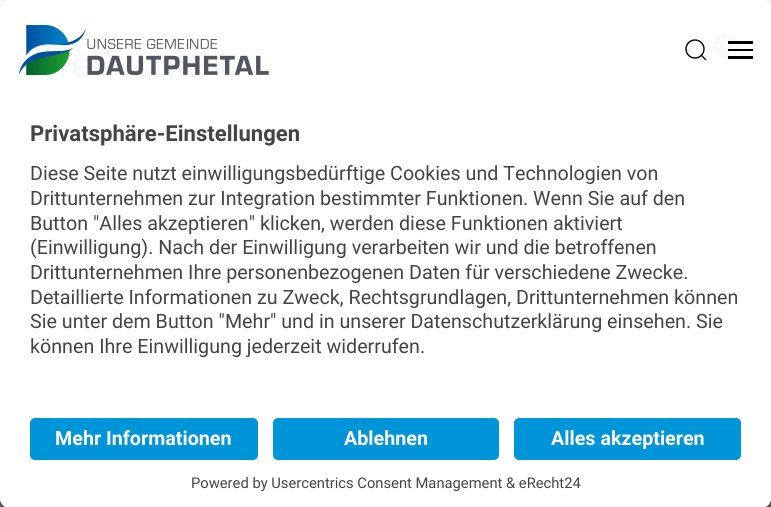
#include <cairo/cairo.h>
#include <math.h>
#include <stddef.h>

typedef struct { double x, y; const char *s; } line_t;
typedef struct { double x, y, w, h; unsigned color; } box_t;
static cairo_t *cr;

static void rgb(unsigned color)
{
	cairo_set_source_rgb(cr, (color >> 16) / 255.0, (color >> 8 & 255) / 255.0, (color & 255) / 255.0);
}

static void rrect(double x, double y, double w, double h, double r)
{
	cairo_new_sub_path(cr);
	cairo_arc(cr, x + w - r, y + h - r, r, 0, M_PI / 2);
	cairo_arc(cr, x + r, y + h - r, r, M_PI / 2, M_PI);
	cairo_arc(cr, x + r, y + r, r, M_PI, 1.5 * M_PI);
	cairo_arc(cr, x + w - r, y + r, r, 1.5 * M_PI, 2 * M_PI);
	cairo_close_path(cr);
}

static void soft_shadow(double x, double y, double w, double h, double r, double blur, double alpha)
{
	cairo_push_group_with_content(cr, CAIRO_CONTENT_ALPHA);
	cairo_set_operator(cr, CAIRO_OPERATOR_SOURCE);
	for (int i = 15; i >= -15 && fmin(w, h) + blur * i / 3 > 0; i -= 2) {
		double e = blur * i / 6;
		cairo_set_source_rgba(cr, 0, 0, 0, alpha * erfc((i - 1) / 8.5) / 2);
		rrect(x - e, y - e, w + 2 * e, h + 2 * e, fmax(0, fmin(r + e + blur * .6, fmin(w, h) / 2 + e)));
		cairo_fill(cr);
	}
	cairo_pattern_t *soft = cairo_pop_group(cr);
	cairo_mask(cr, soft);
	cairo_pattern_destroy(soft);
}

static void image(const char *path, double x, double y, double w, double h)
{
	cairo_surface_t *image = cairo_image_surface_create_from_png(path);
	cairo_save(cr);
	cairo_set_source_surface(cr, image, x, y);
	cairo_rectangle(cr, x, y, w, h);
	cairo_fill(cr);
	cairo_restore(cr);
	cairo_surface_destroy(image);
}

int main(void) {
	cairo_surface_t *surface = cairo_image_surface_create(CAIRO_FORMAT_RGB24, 771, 507);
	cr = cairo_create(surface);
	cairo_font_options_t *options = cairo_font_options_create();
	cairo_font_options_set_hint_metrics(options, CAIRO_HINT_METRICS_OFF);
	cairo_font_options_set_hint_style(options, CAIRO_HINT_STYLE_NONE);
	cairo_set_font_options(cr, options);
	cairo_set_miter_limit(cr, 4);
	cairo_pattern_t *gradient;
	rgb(0x707070);
	cairo_paint(cr);
	gradient = cairo_pattern_create_linear(256, 249, 515, -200);
	cairo_pattern_add_color_stop_rgba(gradient, 0.2, 0.141, 0.235, 0.329, 1);
	cairo_pattern_add_color_stop_rgba(gradient, 1, 0.141, 0.298, 0.38, 1);
	cairo_set_source(cr, gradient);
	cairo_pattern_destroy(gradient);
	cairo_rectangle(cr, 0, 0, 771, 10);
	cairo_fill(cr);
	rgb(0x000000);
	soft_shadow(0, 25, 771, 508, 10, 17.5, 0.3);
	soft_shadow(0, 6, 771, 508, 10, 16, 0.22);
	rgb(0xffffff);
	rrect(0, 0, 771, 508, 10);
	cairo_fill(cr);
	cairo_save(cr);
	rrect(0, 0, 771, 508, 10);
	cairo_clip(cr);
	cairo_new_path(cr);
	cairo_move_to(cr, 10, 0);
	cairo_line_to(cr, 761, 0);
	cairo_curve_to(cr, 766.5, 0, 771, 4.5, 771, 10);
	cairo_line_to(cr, 771, 408);
	cairo_line_to(cr, 0, 408);
	cairo_line_to(cr, 0, 10);
	cairo_curve_to(cr, 0, 4.5, 4.5, 0, 10, 0);
	cairo_close_path(cr);
	cairo_clip(cr);
	cairo_rectangle(cr, 0, 1, 771, 407);
	cairo_fill(cr);
	cairo_restore(cr);
	image("img/2.png", 30, 44, 196, 34);
	image("img/3.png", 713, 33, 27, 27);
	cairo_set_source_rgba(cr, 1, 1, 1, 0.95);
	cairo_rectangle(cr, 0, 0, 771, 78);
	cairo_fill(cr);
	image("img/1.png", 19, 25, 250, 50);
	cairo_arc(cr, 695, 49, 9, 0, 2 * M_PI);
	rgb(0x000000);
	cairo_set_line_width(cr, 1.4);
	cairo_stroke(cr);
	cairo_new_path(cr);
	cairo_move_to(cr, 701, 55);
	cairo_line_to(cr, 706, 60);
	cairo_close_path(cr);
	cairo_stroke(cr);
	{
		static const box_t items[] = {
			{728, 41, 25, 3, 0x000000},
			{728, 49, 25, 2, 0x000000},
			{728, 56, 25, 3, 0x000000},
		};
		for (size_t i = 0; i < sizeof items / sizeof *items; i++) {
			rgb(items[i].color);
			cairo_rectangle(cr, items[i].x, items[i].y, items[i].w, items[i].h);
			cairo_fill(cr);
		}
	}
	rgb(0xffffff);
	cairo_new_path(cr);
	cairo_move_to(cr, 0, 408);
	cairo_line_to(cr, 771, 408);
	cairo_line_to(cr, 771, 498);
	cairo_curve_to(cr, 771, 503.5, 766.5, 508, 761, 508);
	cairo_line_to(cr, 10, 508);
	cairo_curve_to(cr, 4.5, 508, 0, 503.5, 0, 498);
	cairo_close_path(cr);
	cairo_fill(cr);
	rgb(0x0094d8);
	rrect(30, 418, 228, 42, 5);
	cairo_fill(cr);
	rrect(273, 418, 226, 42, 5);
	cairo_fill(cr);
	rrect(514, 418, 227, 42, 5);
	cairo_fill(cr);
	cairo_select_font_face(cr, "Roboto", CAIRO_FONT_SLANT_NORMAL, CAIRO_FONT_WEIGHT_BOLD);
	cairo_set_font_size(cr, 22.1);
	rgb(0x444444);
	cairo_move_to(cr, 30, 141);
	cairo_show_text(cr, "Privatsphäre-Einstellungen");
	cairo_select_font_face(cr, "Roboto", CAIRO_FONT_SLANT_NORMAL, CAIRO_FONT_WEIGHT_NORMAL);
	cairo_set_font_size(cr, 19.7);
	{
		static const line_t items[] = {
			{30, 180, "Diese Seite nutzt einwilligungsbedürftige Cookies und Technologien von"},
			{30, 205, "Drittunternehmen zur Integration bestimmter Funktionen. Wenn Sie auf den"},
			{30, 230, "Button \"Alles akzeptieren\" klicken, werden diese Funktionen aktiviert"},
			{30, 254, "(Einwilligung). Nach der Einwilligung verarbeiten wir und die betroffenen"},
			{30, 279, "Drittunternehmen Ihre personenbezogenen Daten für verschiedene Zwecke."},
			{30, 304, "Detaillierte Informationen zu Zweck, Rechtsgrundlagen, Drittunternehmen können"},
			{30, 328, "Sie unter dem Button \"Mehr\" und in unserer Datenschutzerklärung einsehen. Sie"},
			{30, 353, "können Ihre Einwilligung jederzeit widerrufen."},
		};
		for (size_t i = 0; i < sizeof items / sizeof *items; i++) {
			cairo_move_to(cr, items[i].x, items[i].y);
			cairo_show_text(cr, items[i].s);
		}
	}
	cairo_select_font_face(cr, "Roboto", CAIRO_FONT_SLANT_NORMAL, CAIRO_FONT_WEIGHT_BOLD);
	rgb(0xffffff);
	{
		static const line_t items[] = {
			{55, 445, "Mehr Informationen"},
			{344, 445, "Ablehnen"},
			{551, 445, "Alles akzeptieren"},
		};
		for (size_t i = 0; i < sizeof items / sizeof *items; i++) {
			cairo_move_to(cr, items[i].x, items[i].y);
			cairo_show_text(cr, items[i].s);
		}
	}
	cairo_select_font_face(cr, "Roboto", CAIRO_FONT_SLANT_NORMAL, CAIRO_FONT_WEIGHT_NORMAL);
	cairo_set_font_size(cr, 14.75);
	rgb(0x444444);
	cairo_move_to(cr, 191, 488);
	cairo_show_text(cr, "Powered by Usercentrics Consent Management & eRecht24");
	cairo_surface_write_to_png(surface, "page.png");
	cairo_font_options_destroy(options);
	cairo_destroy(cr);
	cairo_surface_destroy(surface);
	return 0;
}
